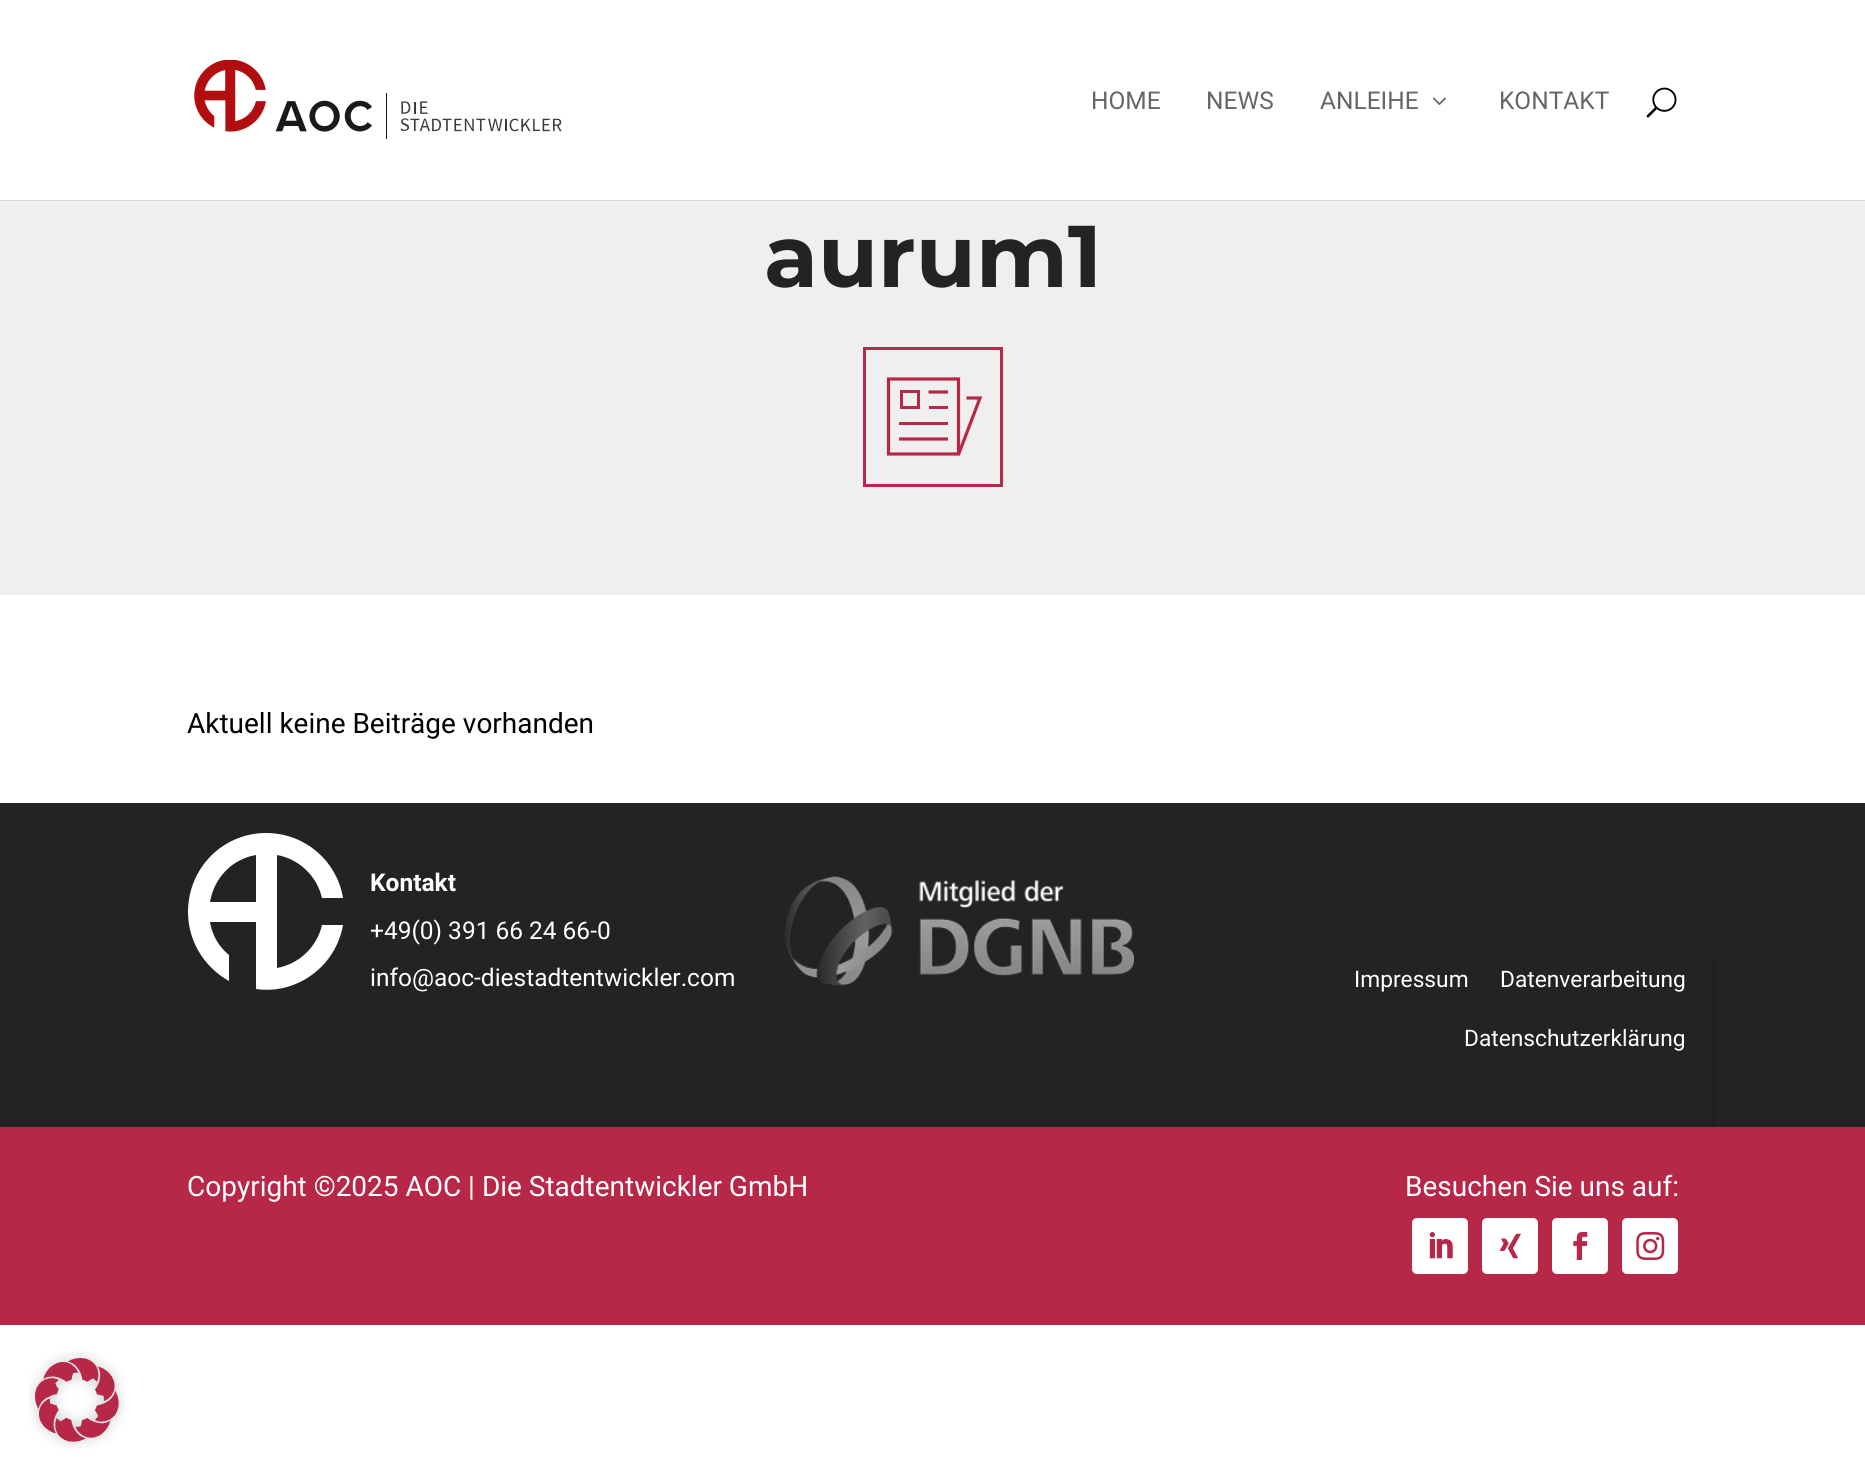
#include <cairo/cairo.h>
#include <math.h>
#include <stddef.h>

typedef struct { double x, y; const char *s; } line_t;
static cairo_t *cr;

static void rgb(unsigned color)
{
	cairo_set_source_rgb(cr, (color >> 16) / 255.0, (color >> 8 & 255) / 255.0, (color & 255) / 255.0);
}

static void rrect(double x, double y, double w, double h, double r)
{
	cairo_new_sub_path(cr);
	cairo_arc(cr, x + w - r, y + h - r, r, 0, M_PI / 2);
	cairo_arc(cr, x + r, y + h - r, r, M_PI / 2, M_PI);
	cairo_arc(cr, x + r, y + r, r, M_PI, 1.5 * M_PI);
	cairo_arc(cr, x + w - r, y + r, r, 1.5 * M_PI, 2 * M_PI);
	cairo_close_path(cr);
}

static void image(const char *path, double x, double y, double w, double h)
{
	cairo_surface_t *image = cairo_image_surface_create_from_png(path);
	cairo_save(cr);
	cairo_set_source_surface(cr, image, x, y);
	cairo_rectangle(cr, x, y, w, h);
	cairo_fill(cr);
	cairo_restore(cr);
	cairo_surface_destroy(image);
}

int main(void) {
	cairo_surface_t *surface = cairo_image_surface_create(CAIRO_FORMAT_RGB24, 1865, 1477);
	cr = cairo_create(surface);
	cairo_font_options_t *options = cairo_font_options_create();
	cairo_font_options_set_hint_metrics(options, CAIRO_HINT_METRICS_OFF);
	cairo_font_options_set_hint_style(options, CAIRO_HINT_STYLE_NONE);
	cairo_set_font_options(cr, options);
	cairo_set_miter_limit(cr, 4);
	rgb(0xffffff);
	cairo_paint(cr);
	rgb(0xd7d7d7);
	cairo_new_path(cr);
	cairo_move_to(cr, 0, 200);
	cairo_line_to(cr, 0, 201);
	cairo_line_to(cr, 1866, 201);
	cairo_line_to(cr, 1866, 2);
	cairo_line_to(cr, 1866, 200);
	cairo_close_path(cr);
	cairo_fill(cr);
	image("img/1.png", 194, 60, 368, 79);
	image("img/2.png", 1432, 97, 14, 8);
	image("img/3.png", 1646, 87, 31, 31);
	rgb(0xefefef);
	cairo_rectangle(cr, 0, 201, 1865, 394);
	cairo_fill(cr);
	cairo_rectangle(cr, 864.5, 348.5, 137, 137);
	rgb(0xb72848);
	cairo_set_line_width(cr, 3);
	cairo_stroke(cr);
	cairo_rectangle(cr, 901.5, 391.5, 17, 16);
	cairo_stroke(cr);
	cairo_new_path(cr);
	cairo_move_to(cr, 928.5, 392);
	cairo_line_to(cr, 948, 392);
	cairo_set_line_width(cr, 3.2);
	cairo_stroke(cr);
	cairo_rectangle(cr, 929, 406, 19, 3);
	cairo_fill(cr);
	cairo_rectangle(cr, 899, 422, 49, 3);
	cairo_fill(cr);
	cairo_new_path(cr);
	cairo_move_to(cr, 899, 439);
	cairo_line_to(cr, 948, 439);
	cairo_stroke(cr);
	cairo_new_path(cr);
	cairo_move_to(cr, 958.5, 454);
	cairo_line_to(cr, 958.5, 379);
	cairo_line_to(cr, 888.5, 379);
	cairo_line_to(cr, 888.5, 454);
	cairo_close_path(cr);
	cairo_stroke(cr);
	cairo_new_path(cr);
	cairo_move_to(cr, 958.5, 454.5);
	cairo_line_to(cr, 980, 398);
	cairo_line_to(cr, 966.5, 398);
	cairo_stroke(cr);
	rgb(0x232323);
	cairo_rectangle(cr, 0, 803, 1865, 324);
	cairo_fill(cr);
	rgb(0xffffff);
	cairo_new_path(cr);
	cairo_move_to(cr, 343, 898);
	cairo_curve_to(cr, 337, 861, 305, 833, 266, 833);
	cairo_curve_to(cr, 223, 833, 188, 868, 188, 912);
	cairo_curve_to(cr, 188, 941, 204, 967, 229, 981);
	cairo_line_to(cr, 229, 955);
	cairo_curve_to(cr, 219, 947, 212, 935, 210, 922);
	cairo_line_to(cr, 256, 922);
	cairo_line_to(cr, 256, 989);
	cairo_curve_to(cr, 297, 995, 336, 966, 343, 925);
	cairo_line_to(cr, 322, 925);
	cairo_curve_to(cr, 317, 947, 299, 964, 277, 968);
	cairo_line_to(cr, 277, 855);
	cairo_curve_to(cr, 299, 859, 317, 876, 322, 898);
	cairo_close_path(cr);
	cairo_move_to(cr, 256, 902);
	cairo_line_to(cr, 210, 902);
	cairo_curve_to(cr, 214, 878, 232, 859, 256, 855);
	cairo_close_path(cr);
	cairo_fill(cr);
	image("img/4.png", 784, 876, 350, 110);
	rgb(0x202020);
	cairo_rectangle(cr, 1712, 956, 2, 171);
	cairo_fill(cr);
	rgb(0xb72848);
	cairo_rectangle(cr, 0, 1127, 1865, 198);
	cairo_fill(cr);
	rgb(0xffffff);
	rrect(1412, 1218, 56, 56, 5);
	cairo_fill(cr);
	image("img/5.png", 1429, 1232, 24, 27);
	rrect(1482, 1218, 56, 56, 5);
	cairo_fill(cr);
	image("img/6.png", 1499, 1233, 22, 26);
	rrect(1552, 1218, 56, 56, 5);
	cairo_fill(cr);
	image("img/7.png", 1573, 1232, 15, 28);
	rrect(1622, 1218, 56, 56, 5);
	cairo_fill(cr);
	image("img/8.png", 1636, 1232, 29, 28);
	image("img/9.png", 28, 1351, 98, 98);
	cairo_select_font_face(cr, "Roboto", CAIRO_FONT_SLANT_NORMAL, CAIRO_FONT_WEIGHT_NORMAL);
	cairo_set_font_size(cr, 24.5);
	rgb(0x666666);
	{
		static const line_t items[] = {
			{1091, 109, "HOME"},
			{1206, 109, "NEWS"},
			{1320, 109, "ANLEIHE"},
			{1499, 109, "KONTAKT"},
		};
		for (size_t i = 0; i < sizeof items / sizeof *items; i++) {
			cairo_move_to(cr, items[i].x, items[i].y);
			cairo_show_text(cr, items[i].s);
		}
	}
	cairo_select_font_face(cr, "Montserrat Thin", CAIRO_FONT_SLANT_NORMAL, CAIRO_FONT_WEIGHT_NORMAL);
	cairo_set_font_size(cr, 87.5);
	rgb(0x232323);
	cairo_move_to(cr, 764, 287);
	cairo_show_text(cr, "aurum1");
	cairo_select_font_face(cr, "Roboto", CAIRO_FONT_SLANT_NORMAL, CAIRO_FONT_WEIGHT_NORMAL);
	cairo_set_font_size(cr, 28);
	rgb(0x000000);
	cairo_move_to(cr, 187, 733);
	cairo_show_text(cr, "Aktuell keine Beiträge vorhanden");
	cairo_select_font_face(cr, "Roboto", CAIRO_FONT_SLANT_NORMAL, CAIRO_FONT_WEIGHT_BOLD);
	cairo_set_font_size(cr, 24.5);
	rgb(0xffffff);
	cairo_move_to(cr, 370, 891);
	cairo_show_text(cr, "Kontakt");
	cairo_select_font_face(cr, "Roboto", CAIRO_FONT_SLANT_NORMAL, CAIRO_FONT_WEIGHT_NORMAL);
	cairo_move_to(cr, 370, 939);
	cairo_show_text(cr, "+49(0) 391 66 24 66-0");
	cairo_move_to(cr, 370, 986);
	cairo_show_text(cr, "info@aoc-diestadtentwickler.com");
	cairo_set_font_size(cr, 22.75);
	{
		static const line_t items[] = {
			{1354, 987, "Impressum"},
			{1500, 987, "Datenverarbeitung"},
			{1464, 1046, "Datenschutzerklärung"},
		};
		for (size_t i = 0; i < sizeof items / sizeof *items; i++) {
			cairo_move_to(cr, items[i].x, items[i].y);
			cairo_show_text(cr, items[i].s);
		}
	}
	cairo_set_font_size(cr, 28);
	cairo_move_to(cr, 187, 1196);
	cairo_show_text(cr, "Copyright ©2025 AOC | Die Stadtentwickler GmbH");
	cairo_move_to(cr, 1405, 1196);
	cairo_show_text(cr, "Besuchen Sie uns auf:");
	cairo_surface_write_to_png(surface, "page.png");
	cairo_font_options_destroy(options);
	cairo_destroy(cr);
	cairo_surface_destroy(surface);
	return 0;
}
